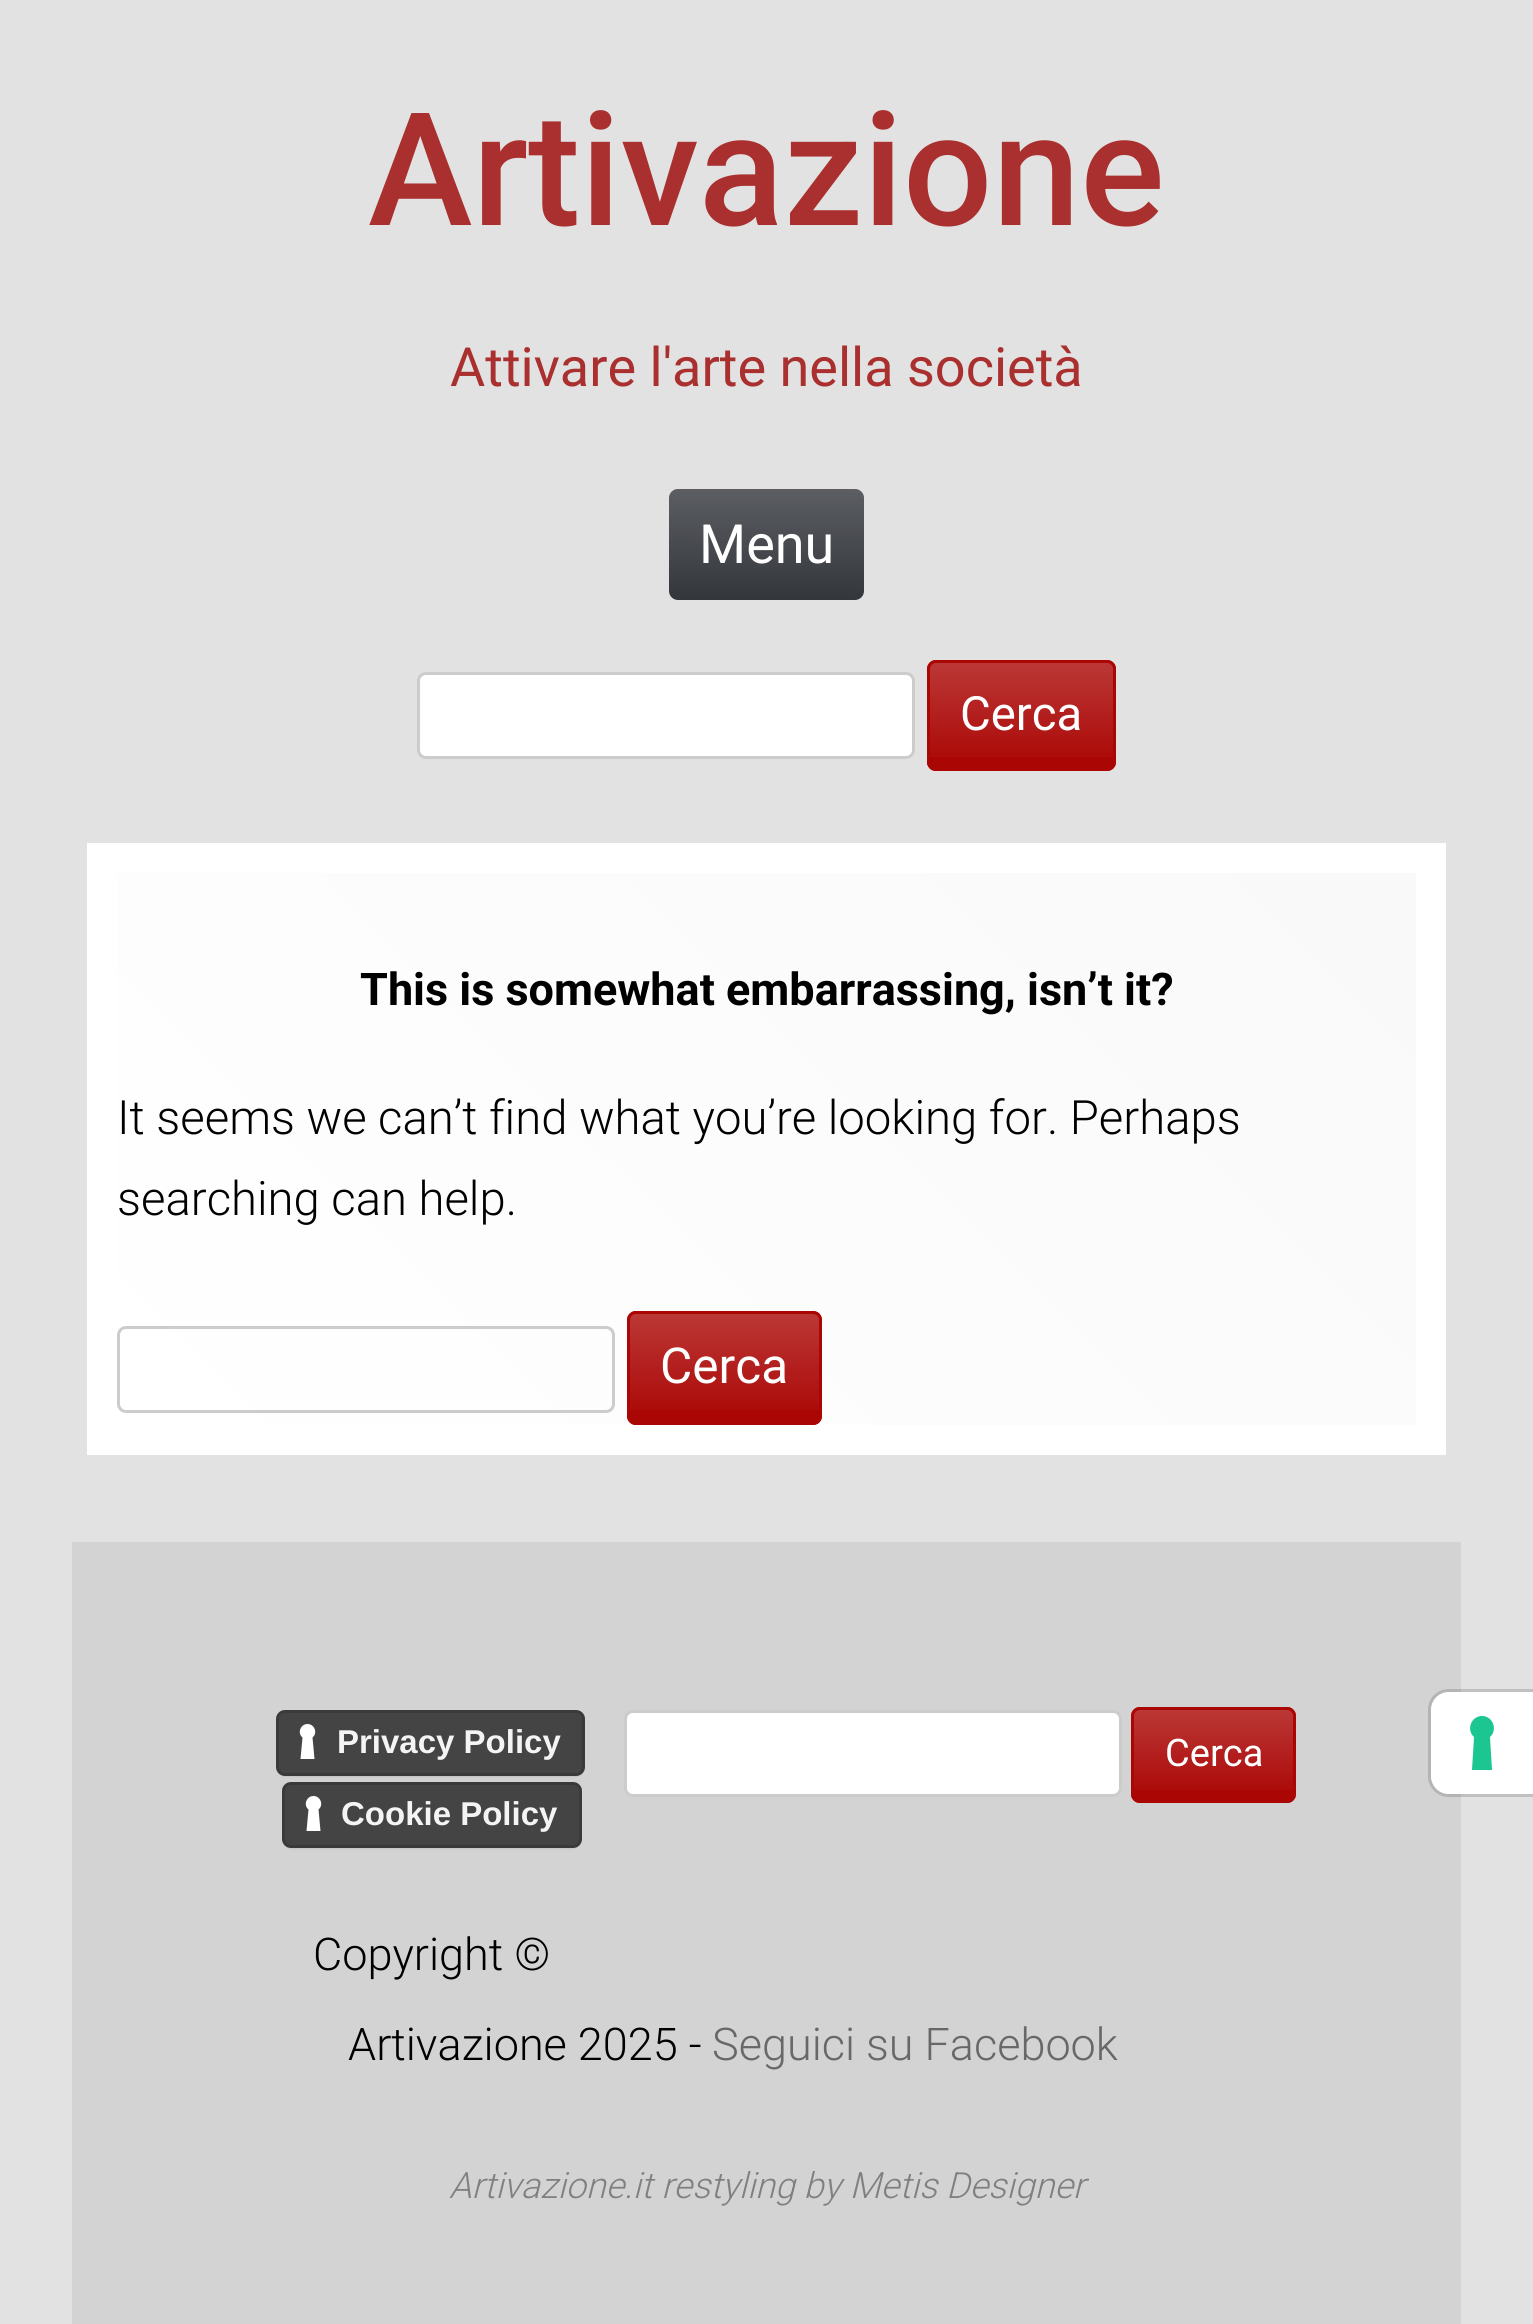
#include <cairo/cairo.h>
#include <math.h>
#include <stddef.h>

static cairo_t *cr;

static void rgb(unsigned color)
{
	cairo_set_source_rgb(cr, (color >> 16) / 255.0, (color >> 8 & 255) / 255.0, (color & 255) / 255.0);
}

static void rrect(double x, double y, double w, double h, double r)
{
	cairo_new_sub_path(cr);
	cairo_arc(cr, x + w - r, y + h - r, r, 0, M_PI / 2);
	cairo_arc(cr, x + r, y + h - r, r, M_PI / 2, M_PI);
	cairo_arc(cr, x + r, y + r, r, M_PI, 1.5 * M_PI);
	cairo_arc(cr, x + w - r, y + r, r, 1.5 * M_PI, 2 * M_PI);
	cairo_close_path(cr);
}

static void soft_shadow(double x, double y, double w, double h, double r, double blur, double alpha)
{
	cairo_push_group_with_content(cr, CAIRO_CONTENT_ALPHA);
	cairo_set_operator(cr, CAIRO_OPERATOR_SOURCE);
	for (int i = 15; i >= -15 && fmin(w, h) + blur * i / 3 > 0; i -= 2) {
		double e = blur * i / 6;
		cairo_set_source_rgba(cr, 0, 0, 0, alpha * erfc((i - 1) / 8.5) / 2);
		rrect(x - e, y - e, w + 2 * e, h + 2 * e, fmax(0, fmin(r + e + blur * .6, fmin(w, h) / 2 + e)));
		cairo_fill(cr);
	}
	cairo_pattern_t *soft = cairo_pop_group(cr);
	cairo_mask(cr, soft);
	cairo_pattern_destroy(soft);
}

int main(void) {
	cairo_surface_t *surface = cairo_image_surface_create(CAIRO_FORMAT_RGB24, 1533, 2324);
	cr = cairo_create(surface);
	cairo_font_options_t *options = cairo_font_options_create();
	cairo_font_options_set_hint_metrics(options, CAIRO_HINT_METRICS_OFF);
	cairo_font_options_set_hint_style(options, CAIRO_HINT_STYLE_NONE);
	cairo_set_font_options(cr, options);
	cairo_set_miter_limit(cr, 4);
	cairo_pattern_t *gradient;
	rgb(0xe2e2e2);
	cairo_paint(cr);
	rgb(0x33363b);
	rrect(669, 489, 195, 111, 9);
	cairo_fill(cr);
	gradient = cairo_pattern_create_linear(767, 489, 767, 600);
	cairo_pattern_add_color_stop_rgba(gradient, 0, 1, 1, 1, 0.2);
	cairo_pattern_add_color_stop_rgba(gradient, 1, 1, 1, 1, 0);
	cairo_set_source(cr, gradient);
	cairo_pattern_destroy(gradient);
	rrect(669, 489, 195, 111, 9);
	cairo_fill(cr);
	rgb(0xffffff);
	rrect(418.5, 673.5, 495, 84, 7.5);
	cairo_fill_preserve(cr);
	rgb(0xcccccc);
	cairo_set_line_width(cr, 3);
	cairo_stroke(cr);
	rgb(0xaa0604);
	rrect(927, 660, 189, 111, 9);
	cairo_fill(cr);
	cairo_save(cr);
	rrect(927, 660, 189, 111, 9);
	cairo_clip(cr);
	gradient = cairo_pattern_create_linear(1022, 663, 1022, 768);
	cairo_pattern_add_color_stop_rgba(gradient, 0, 1, 1, 1, 0.2);
	cairo_pattern_add_color_stop_rgba(gradient, 1, 1, 1, 1, 0);
	cairo_set_source(cr, gradient);
	cairo_pattern_destroy(gradient);
	cairo_rectangle(cr, 927, 663, 189, 94);
	cairo_fill(cr);
	cairo_restore(cr);
	rrect(928.5, 661.5, 186, 108, 7.5);
	cairo_stroke(cr);
	gradient = cairo_pattern_create_linear(304, 1612, 1229, 686);
	cairo_pattern_add_color_stop_rgba(gradient, 0, 1, 1, 1, 1);
	cairo_pattern_add_color_stop_rgba(gradient, 1, 0.976, 0.976, 0.976, 1);
	cairo_set_source(cr, gradient);
	cairo_pattern_destroy(gradient);
	cairo_rectangle(cr, 117, 873, 1299, 552);
	cairo_fill(cr);
	cairo_rectangle(cr, 102, 858, 1329, 582);
	rgb(0xffffff);
	cairo_set_line_width(cr, 30);
	cairo_stroke(cr);
	rrect(118.5, 1327.5, 495, 84, 7.5);
	rgb(0xcccccc);
	cairo_set_line_width(cr, 3);
	cairo_stroke(cr);
	rgb(0xaa0604);
	rrect(627, 1311, 195, 114, 9);
	cairo_fill(cr);
	cairo_save(cr);
	rrect(627, 1311, 195, 114, 9);
	cairo_clip(cr);
	gradient = cairo_pattern_create_linear(725, 1314, 725, 1422);
	cairo_pattern_add_color_stop_rgba(gradient, 0, 1, 1, 1, 0.2);
	cairo_pattern_add_color_stop_rgba(gradient, 1, 1, 1, 1, 0);
	cairo_set_source(cr, gradient);
	cairo_pattern_destroy(gradient);
	cairo_rectangle(cr, 627, 1314, 195, 96);
	cairo_fill(cr);
	cairo_restore(cr);
	rrect(628.5, 1312.5, 192, 111, 7.5);
	cairo_stroke(cr);
	rgb(0xd3d3d3);
	cairo_rectangle(cr, 72, 1542, 1389, 782);
	cairo_fill(cr);
	rgb(0x000000);
	soft_shadow(279, 1716, 303, 60, 6, 1.5, 0.15);
	rgb(0x444444);
	rrect(276, 1710, 309, 66, 9);
	cairo_fill(cr);
	rgb(0xffffff);
	cairo_set_fill_rule(cr, CAIRO_FILL_RULE_EVEN_ODD);
	cairo_new_path(cr);
	cairo_move_to(cr, 307.5, 1724);
	cairo_curve_to(cr, 314.5, 1724, 318, 1733, 312.5, 1737.5);
	cairo_line_to(cr, 314.5, 1759);
	cairo_line_to(cr, 300.5, 1759);
	cairo_line_to(cr, 302.5, 1737.5);
	cairo_curve_to(cr, 297, 1733, 300.5, 1724, 307.5, 1724);
	cairo_close_path(cr);
	cairo_fill(cr);
	rrect(277.5, 1711.5, 306, 63, 7.5);
	cairo_set_source_rgba(cr, 0, 0, 0, 0.15);
	cairo_stroke(cr);
	rgb(0xffffff);
	rrect(625.5, 1711.5, 495, 84, 7.5);
	cairo_fill_preserve(cr);
	rgb(0xcccccc);
	cairo_stroke(cr);
	rgb(0xaa0604);
	rrect(1131, 1707, 165, 96, 9);
	cairo_fill(cr);
	cairo_save(cr);
	cairo_set_fill_rule(cr, CAIRO_FILL_RULE_WINDING);
	rrect(1131, 1707, 165, 96, 9);
	cairo_clip(cr);
	gradient = cairo_pattern_create_linear(1214, 1710, 1214, 1800);
	cairo_pattern_add_color_stop_rgba(gradient, 0, 1, 1, 1, 0.2);
	cairo_pattern_add_color_stop_rgba(gradient, 1, 1, 1, 1, 0);
	cairo_set_source(cr, gradient);
	cairo_pattern_destroy(gradient);
	cairo_rectangle(cr, 1131, 1710, 165, 80);
	cairo_fill(cr);
	cairo_restore(cr);
	rrect(1132.5, 1708.5, 162, 93, 7.5);
	cairo_stroke(cr);
	rgb(0x000000);
	soft_shadow(285, 1788, 294, 60, 6, 1.5, 0.15);
	rgb(0x444444);
	rrect(282, 1782, 300, 66, 9);
	cairo_fill(cr);
	rgb(0xffffff);
	cairo_new_path(cr);
	cairo_move_to(cr, 313.5, 1796);
	cairo_curve_to(cr, 320.5, 1796, 324, 1805, 318.5, 1809.5);
	cairo_line_to(cr, 320.5, 1831);
	cairo_line_to(cr, 306.5, 1831);
	cairo_line_to(cr, 308.5, 1809.5);
	cairo_curve_to(cr, 303, 1805, 306.5, 1796, 313.5, 1796);
	cairo_close_path(cr);
	cairo_fill(cr);
	rrect(283.5, 1783.5, 297, 63, 7.5);
	cairo_set_source_rgba(cr, 0, 0, 0, 0.15);
	cairo_stroke(cr);
	cairo_new_path(cr);
	cairo_move_to(cr, 1449, 1690.5);
	cairo_line_to(cr, 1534.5, 1690.5);
	cairo_line_to(cr, 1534.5, 1795.5);
	cairo_line_to(cr, 1449, 1795.5);
	cairo_curve_to(cr, 1438, 1795.5, 1429.5, 1787, 1429.5, 1776);
	cairo_line_to(cr, 1429.5, 1710);
	cairo_curve_to(cr, 1429.5, 1699, 1438, 1690.5, 1449, 1690.5);
	cairo_close_path(cr);
	cairo_stroke(cr);
	rgb(0xffffff);
	cairo_new_path(cr);
	cairo_move_to(cr, 1449, 1692);
	cairo_line_to(cr, 1533, 1692);
	cairo_line_to(cr, 1533, 1794);
	cairo_line_to(cr, 1449, 1794);
	cairo_curve_to(cr, 1439, 1794, 1431, 1786, 1431, 1776);
	cairo_line_to(cr, 1431, 1710);
	cairo_curve_to(cr, 1431, 1700, 1439, 1692, 1449, 1692);
	cairo_close_path(cr);
	cairo_fill(cr);
	rgb(0x1cc691);
	cairo_new_path(cr);
	cairo_move_to(cr, 1482, 1716);
	cairo_curve_to(cr, 1493, 1716, 1498, 1730, 1490, 1737);
	cairo_line_to(cr, 1492, 1770);
	cairo_line_to(cr, 1472, 1770);
	cairo_line_to(cr, 1474, 1737);
	cairo_curve_to(cr, 1466, 1730, 1471, 1716, 1482, 1716);
	cairo_close_path(cr);
	cairo_fill(cr);
	cairo_select_font_face(cr, "Roboto Medium", CAIRO_FONT_SLANT_NORMAL, CAIRO_FONT_WEIGHT_NORMAL);
	cairo_set_font_size(cr, 157.5);
	rgb(0xaa2f2f);
	cairo_move_to(cr, 368, 225);
	cairo_show_text(cr, "Artivazione");
	cairo_select_font_face(cr, "Roboto", CAIRO_FONT_SLANT_NORMAL, CAIRO_FONT_WEIGHT_NORMAL);
	cairo_set_font_size(cr, 54);
	cairo_move_to(cr, 450, 386);
	cairo_show_text(cr, "Attivare l'arte nella società");
	rgb(0xffffff);
	cairo_move_to(cr, 699, 563);
	cairo_show_text(cr, "Menu");
	cairo_set_font_size(cr, 47.25);
	cairo_move_to(cr, 960, 730);
	cairo_show_text(cr, "Cerca");
	cairo_select_font_face(cr, "Roboto", CAIRO_FONT_SLANT_NORMAL, CAIRO_FONT_WEIGHT_BOLD);
	cairo_set_font_size(cr, 45);
	rgb(0x000000);
	cairo_move_to(cr, 360, 1005);
	cairo_show_text(cr, "This is somewhat embarrassing, isn’t it?");
	cairo_select_font_face(cr, "Roboto Light", CAIRO_FONT_SLANT_NORMAL, CAIRO_FONT_WEIGHT_NORMAL);
	cairo_set_font_size(cr, 47.25);
	cairo_move_to(cr, 117, 1134);
	cairo_show_text(cr, "It seems we can’t find what you’re looking for. Perhaps");
	cairo_move_to(cr, 117, 1215);
	cairo_show_text(cr, "searching can help.");
	cairo_select_font_face(cr, "Roboto", CAIRO_FONT_SLANT_NORMAL, CAIRO_FONT_WEIGHT_NORMAL);
	cairo_set_font_size(cr, 49.5);
	rgb(0xffffff);
	cairo_move_to(cr, 660, 1383);
	cairo_show_text(cr, "Cerca");
	cairo_select_font_face(cr, "Liberation Sans", CAIRO_FONT_SLANT_NORMAL, CAIRO_FONT_WEIGHT_BOLD);
	cairo_set_font_size(cr, 33);
	rgb(0xf4f4f4);
	cairo_move_to(cr, 337, 1753);
	cairo_show_text(cr, "Privacy Policy");
	cairo_select_font_face(cr, "Roboto", CAIRO_FONT_SLANT_NORMAL, CAIRO_FONT_WEIGHT_NORMAL);
	cairo_set_font_size(cr, 38);
	rgb(0xffffff);
	cairo_move_to(cr, 1165, 1766);
	cairo_show_text(cr, "Cerca");
	cairo_select_font_face(cr, "Liberation Sans", CAIRO_FONT_SLANT_NORMAL, CAIRO_FONT_WEIGHT_BOLD);
	cairo_set_font_size(cr, 33);
	rgb(0xf4f4f4);
	cairo_move_to(cr, 341, 1825);
	cairo_show_text(cr, "Cookie Policy");
	cairo_select_font_face(cr, "Roboto Light", CAIRO_FONT_SLANT_NORMAL, CAIRO_FONT_WEIGHT_NORMAL);
	cairo_set_font_size(cr, 45);
	rgb(0x000000);
	cairo_move_to(cr, 313, 1970);
	cairo_show_text(cr, "Copyright ©");
	cairo_move_to(cr, 348, 2060);
	cairo_show_text(cr, "Artivazione 2025 -");
	rgb(0x686868);
	cairo_move_to(cr, 712, 2060);
	cairo_show_text(cr, "Seguici su Facebook");
	cairo_select_font_face(cr, "Roboto Light", CAIRO_FONT_SLANT_ITALIC, CAIRO_FONT_WEIGHT_NORMAL);
	cairo_set_font_size(cr, 36);
	rgb(0x808080);
	cairo_move_to(cr, 449, 2198);
	cairo_show_text(cr, "Artivazione.it restyling by Metis Designer");
	cairo_surface_write_to_png(surface, "page.png");
	cairo_font_options_destroy(options);
	cairo_destroy(cr);
	cairo_surface_destroy(surface);
	return 0;
}
